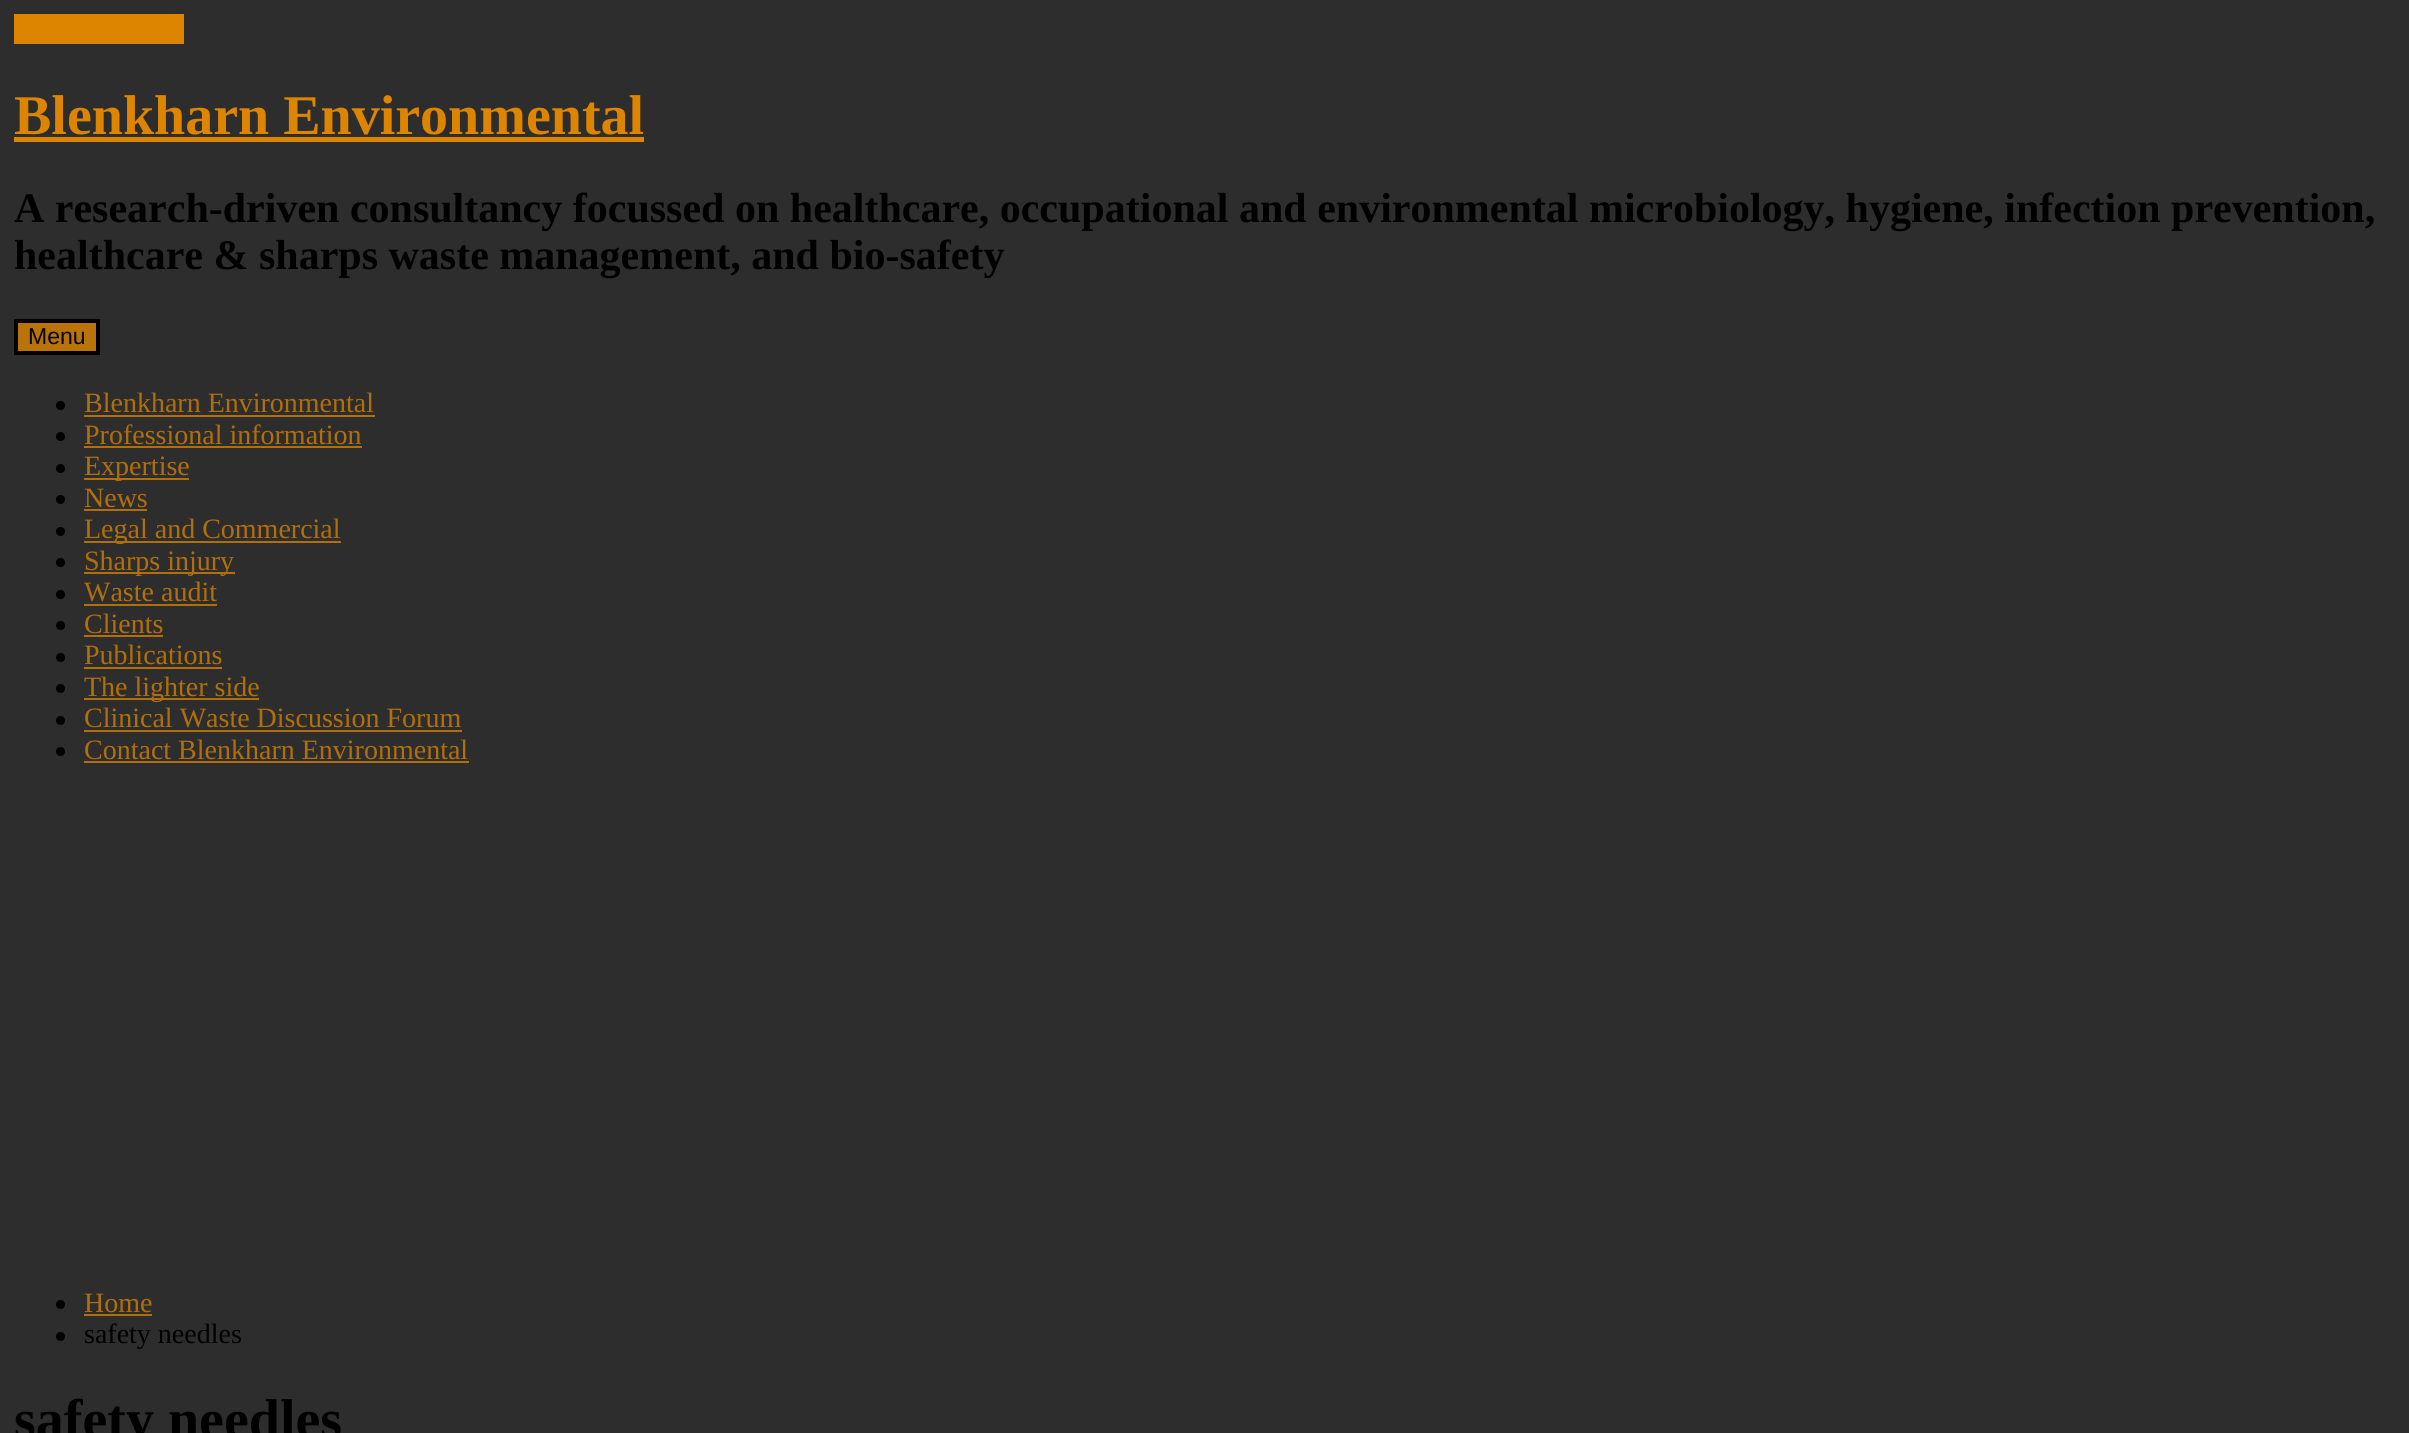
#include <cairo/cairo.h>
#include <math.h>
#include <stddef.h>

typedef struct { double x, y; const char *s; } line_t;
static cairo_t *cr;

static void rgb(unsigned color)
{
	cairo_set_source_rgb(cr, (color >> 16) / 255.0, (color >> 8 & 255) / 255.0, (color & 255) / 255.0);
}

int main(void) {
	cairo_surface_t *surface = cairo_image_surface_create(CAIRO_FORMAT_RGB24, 2409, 1433);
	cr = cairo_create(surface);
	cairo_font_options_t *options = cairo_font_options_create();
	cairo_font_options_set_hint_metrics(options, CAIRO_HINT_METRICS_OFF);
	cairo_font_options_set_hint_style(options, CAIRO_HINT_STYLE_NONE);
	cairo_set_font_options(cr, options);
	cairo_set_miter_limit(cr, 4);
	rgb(0x2d2d2d);
	cairo_paint(cr);
	rgb(0xdd8500);
	cairo_rectangle(cr, 14, 14, 170, 30);
	cairo_fill(cr);
	cairo_rectangle(cr, 14, 137, 630, 5);
	cairo_fill(cr);
	rgb(0xba7309);
	cairo_rectangle(cr, 16, 321, 82, 32);
	cairo_fill_preserve(cr);
	rgb(0x000000);
	cairo_set_line_width(cr, 4);
	cairo_stroke(cr);
	cairo_arc(cr, 60.5, 405.5, 4.5, 0, 2 * M_PI);
	cairo_fill(cr);
	rgb(0xb16f0b);
	cairo_rectangle(cr, 84, 415, 291, 2);
	cairo_fill(cr);
	rgb(0x000000);
	cairo_arc(cr, 60.5, 436.5, 4.5, 0, 2 * M_PI);
	cairo_fill(cr);
	rgb(0xb16f0b);
	cairo_rectangle(cr, 84, 446, 278, 2);
	cairo_fill(cr);
	rgb(0x000000);
	cairo_arc(cr, 60.5, 468.5, 4.5, 0, 2 * M_PI);
	cairo_fill(cr);
	rgb(0xb16f0b);
	cairo_rectangle(cr, 84, 478, 105, 2);
	cairo_fill(cr);
	rgb(0x000000);
	cairo_arc(cr, 60.5, 499.5, 4.5, 0, 2 * M_PI);
	cairo_fill(cr);
	rgb(0xb16f0b);
	cairo_rectangle(cr, 84, 509, 63, 2);
	cairo_fill(cr);
	rgb(0x000000);
	cairo_arc(cr, 60.5, 531.5, 4.5, 0, 2 * M_PI);
	cairo_fill(cr);
	rgb(0xb16f0b);
	cairo_rectangle(cr, 84, 541, 257, 2);
	cairo_fill(cr);
	rgb(0x000000);
	cairo_arc(cr, 60.5, 562.5, 4.5, 0, 2 * M_PI);
	cairo_fill(cr);
	rgb(0xb16f0b);
	cairo_rectangle(cr, 84, 572, 151, 2);
	cairo_fill(cr);
	rgb(0x000000);
	cairo_arc(cr, 60.5, 594.5, 4.5, 0, 2 * M_PI);
	cairo_fill(cr);
	rgb(0xb16f0b);
	cairo_rectangle(cr, 84, 604, 133, 2);
	cairo_fill(cr);
	rgb(0x000000);
	cairo_arc(cr, 60.5, 625.5, 4.5, 0, 2 * M_PI);
	cairo_fill(cr);
	rgb(0xb16f0b);
	cairo_rectangle(cr, 84, 635, 79, 2);
	cairo_fill(cr);
	rgb(0x000000);
	cairo_arc(cr, 60.5, 657.5, 4.5, 0, 2 * M_PI);
	cairo_fill(cr);
	rgb(0xb16f0b);
	cairo_rectangle(cr, 84, 667, 138, 2);
	cairo_fill(cr);
	rgb(0x000000);
	cairo_arc(cr, 60.5, 688.5, 4.5, 0, 2 * M_PI);
	cairo_fill(cr);
	rgb(0xb16f0b);
	cairo_rectangle(cr, 84, 698, 175, 2);
	cairo_fill(cr);
	rgb(0x000000);
	cairo_arc(cr, 60.5, 720.5, 4.5, 0, 2 * M_PI);
	cairo_fill(cr);
	rgb(0xb16f0b);
	cairo_rectangle(cr, 84, 730, 378, 2);
	cairo_fill(cr);
	rgb(0x000000);
	cairo_arc(cr, 60.5, 751.5, 4.5, 0, 2 * M_PI);
	cairo_fill(cr);
	rgb(0xb16f0b);
	cairo_rectangle(cr, 84, 761, 385, 2);
	cairo_fill(cr);
	rgb(0x000000);
	cairo_arc(cr, 60.5, 1304.5, 4.5, 0, 2 * M_PI);
	cairo_fill(cr);
	rgb(0xb16f0b);
	cairo_rectangle(cr, 84, 1314, 68, 2);
	cairo_fill(cr);
	rgb(0x000000);
	cairo_arc(cr, 60.5, 1336.5, 4.5, 0, 2 * M_PI);
	cairo_fill(cr);
	cairo_select_font_face(cr, "Liberation Serif", CAIRO_FONT_SLANT_NORMAL, CAIRO_FONT_WEIGHT_BOLD);
	cairo_set_font_size(cr, 56);
	rgb(0xdd8500);
	cairo_move_to(cr, 14, 134);
	cairo_show_text(cr, "Blenkharn Environmental");
	cairo_set_font_size(cr, 42);
	rgb(0x000000);
	cairo_move_to(cr, 14, 222);
	cairo_show_text(cr, "A research-driven consultancy focussed on healthcare, occupational and environmental microbiology, hygiene, infection prevention,");
	cairo_move_to(cr, 14, 269);
	cairo_show_text(cr, "healthcare & sharps waste management, and bio-safety");
	cairo_select_font_face(cr, "Liberation Sans", CAIRO_FONT_SLANT_NORMAL, CAIRO_FONT_WEIGHT_NORMAL);
	cairo_set_font_size(cr, 23);
	cairo_move_to(cr, 28, 344);
	cairo_show_text(cr, "Menu");
	cairo_select_font_face(cr, "Liberation Serif", CAIRO_FONT_SLANT_NORMAL, CAIRO_FONT_WEIGHT_NORMAL);
	cairo_set_font_size(cr, 28);
	rgb(0xb16f0b);
	{
		static const line_t items[] = {
			{84, 412, "Blenkharn Environmental"},
			{84, 444, "Professional information"},
			{84, 475, "Expertise"},
			{84, 507, "News"},
			{84, 538, "Legal and Commercial"},
			{84, 570, "Sharps injury"},
			{84, 601, "Waste audit"},
			{84, 633, "Clients"},
			{84, 664, "Publications"},
			{84, 696, "The lighter side"},
			{84, 727, "Clinical Waste Discussion Forum"},
			{84, 759, "Contact Blenkharn Environmental"},
			{84, 1312, "Home"},
		};
		for (size_t i = 0; i < sizeof items / sizeof *items; i++) {
			cairo_move_to(cr, items[i].x, items[i].y);
			cairo_show_text(cr, items[i].s);
		}
	}
	rgb(0x000000);
	cairo_move_to(cr, 84, 1343);
	cairo_show_text(cr, "safety needles");
	cairo_select_font_face(cr, "Liberation Serif", CAIRO_FONT_SLANT_NORMAL, CAIRO_FONT_WEIGHT_BOLD);
	cairo_set_font_size(cr, 56);
	cairo_move_to(cr, 14, 1438);
	cairo_show_text(cr, "safety needles");
	cairo_surface_write_to_png(surface, "page.png");
	cairo_font_options_destroy(options);
	cairo_destroy(cr);
	cairo_surface_destroy(surface);
	return 0;
}
